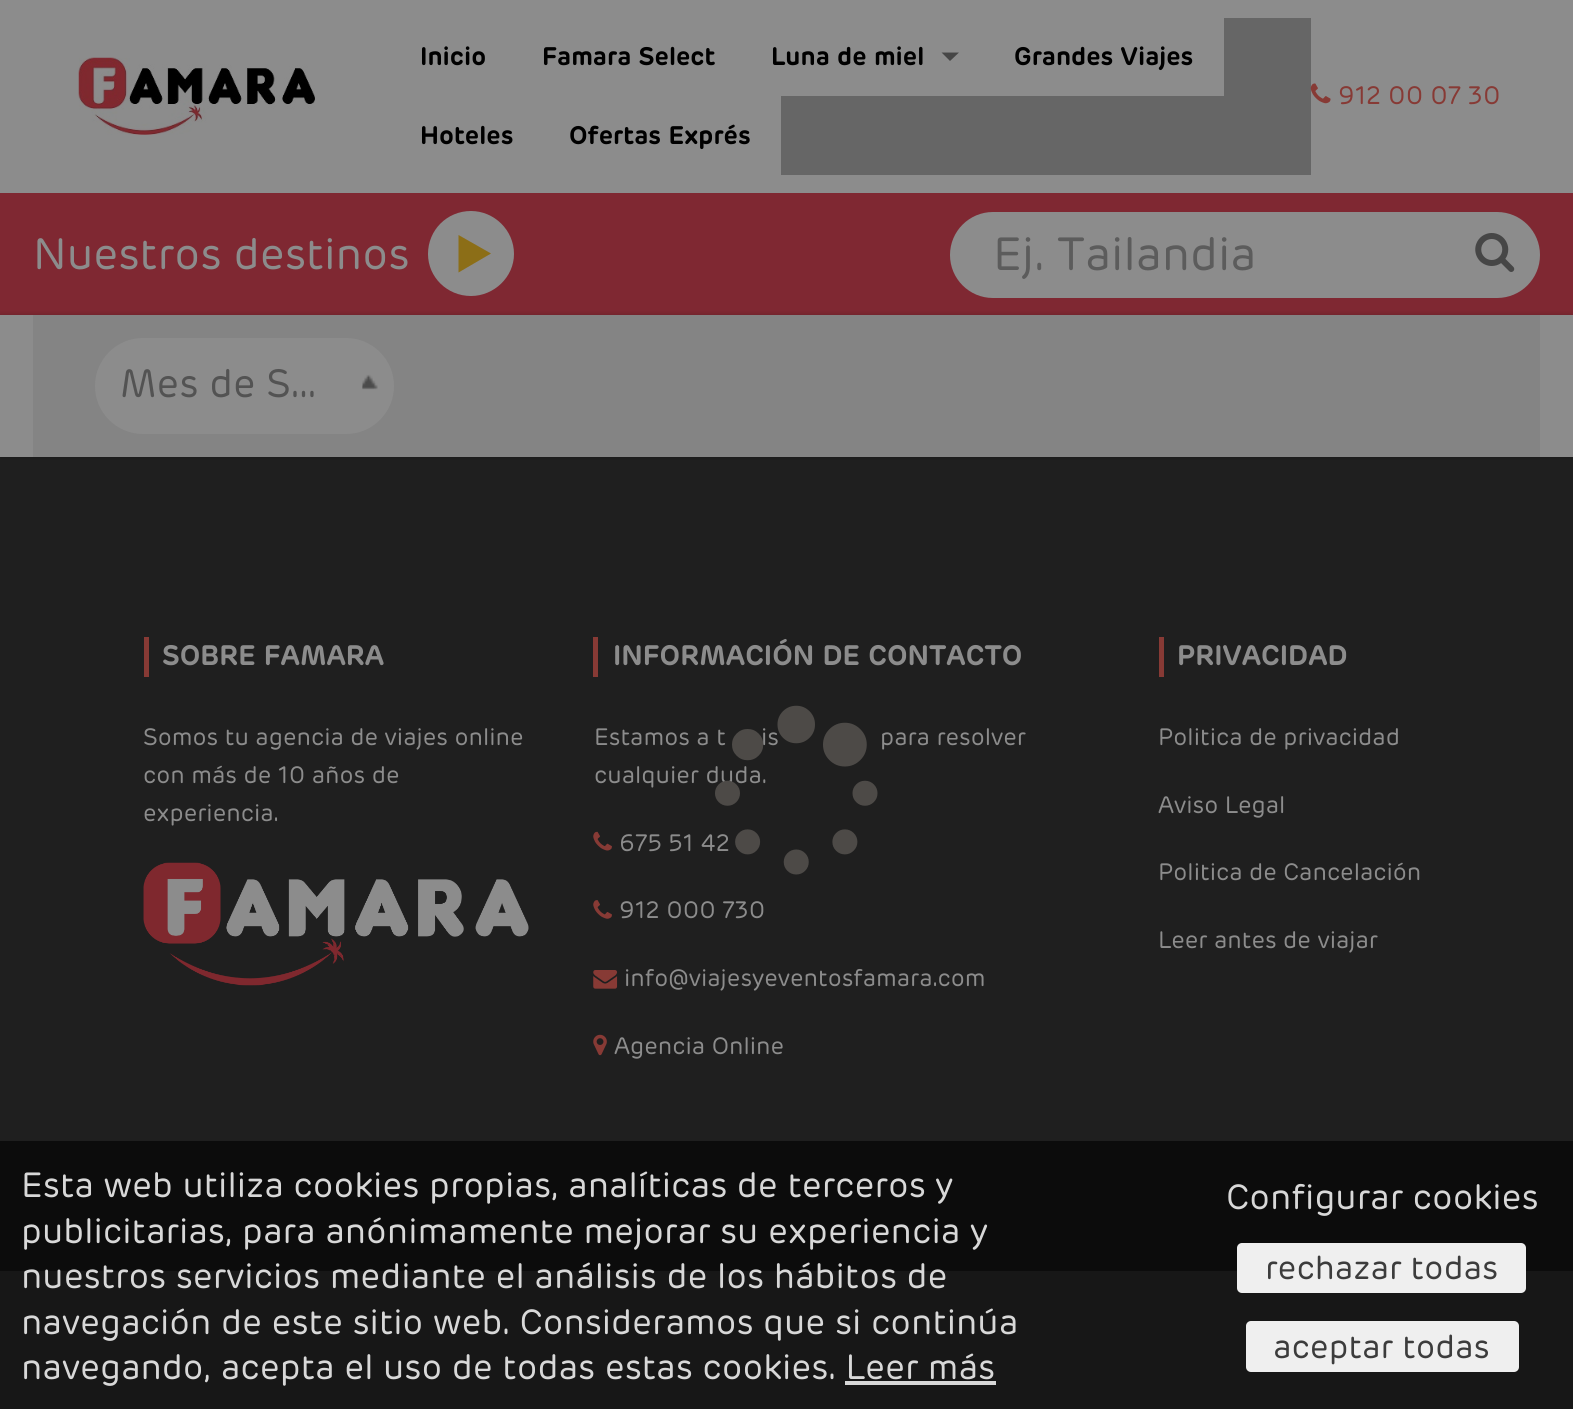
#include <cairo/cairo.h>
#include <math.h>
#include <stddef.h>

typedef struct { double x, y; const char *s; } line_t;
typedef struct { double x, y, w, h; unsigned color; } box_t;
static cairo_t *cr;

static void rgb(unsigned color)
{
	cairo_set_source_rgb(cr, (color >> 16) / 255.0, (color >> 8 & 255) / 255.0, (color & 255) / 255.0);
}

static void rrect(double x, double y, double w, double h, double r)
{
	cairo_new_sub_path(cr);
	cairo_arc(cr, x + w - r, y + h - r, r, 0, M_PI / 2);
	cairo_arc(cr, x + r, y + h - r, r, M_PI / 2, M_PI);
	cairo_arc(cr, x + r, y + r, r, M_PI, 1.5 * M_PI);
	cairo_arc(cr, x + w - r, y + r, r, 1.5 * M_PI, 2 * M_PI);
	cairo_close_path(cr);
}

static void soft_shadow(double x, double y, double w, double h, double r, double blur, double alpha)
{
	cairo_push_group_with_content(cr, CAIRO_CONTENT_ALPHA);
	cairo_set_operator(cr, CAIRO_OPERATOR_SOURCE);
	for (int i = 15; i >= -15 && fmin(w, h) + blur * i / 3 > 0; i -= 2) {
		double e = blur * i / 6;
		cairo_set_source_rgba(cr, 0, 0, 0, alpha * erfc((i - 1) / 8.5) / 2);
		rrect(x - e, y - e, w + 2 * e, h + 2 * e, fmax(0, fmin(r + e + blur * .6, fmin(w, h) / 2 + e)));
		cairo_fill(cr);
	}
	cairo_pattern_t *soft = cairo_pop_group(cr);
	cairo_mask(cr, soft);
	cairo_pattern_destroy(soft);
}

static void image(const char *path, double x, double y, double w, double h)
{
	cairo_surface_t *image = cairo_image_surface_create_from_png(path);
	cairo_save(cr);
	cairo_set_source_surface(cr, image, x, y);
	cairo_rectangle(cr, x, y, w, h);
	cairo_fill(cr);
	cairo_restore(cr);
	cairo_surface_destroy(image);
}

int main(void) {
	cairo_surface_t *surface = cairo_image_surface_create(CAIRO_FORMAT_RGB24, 1573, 1409);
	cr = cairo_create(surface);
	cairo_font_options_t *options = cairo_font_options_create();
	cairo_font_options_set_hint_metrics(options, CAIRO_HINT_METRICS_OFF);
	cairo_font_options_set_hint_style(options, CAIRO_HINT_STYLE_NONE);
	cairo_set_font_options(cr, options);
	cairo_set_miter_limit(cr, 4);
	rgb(0x171717);
	cairo_paint(cr);
	rgb(0x8c8c8c);
	cairo_rectangle(cr, 0, 0, 1573, 193);
	cairo_fill(cr);
	image("img/1.png", 78, 57, 237, 78);
	{
		static const box_t items[] = {
			{781, 18, 530, 157, 0x666666},
			{781, 18, 439, 78, 0x8c8c8c},
			{1220, 18, 4, 78, 0x8c8c8c},
		};
		for (size_t i = 0; i < sizeof items / sizeof *items; i++) {
			rgb(items[i].color);
			cairo_rectangle(cr, items[i].x, items[i].y, items[i].w, items[i].h);
			cairo_fill(cr);
		}
	}
	rgb(0x464646);
	cairo_new_path(cr);
	cairo_move_to(cr, 941.5, 52.5);
	cairo_line_to(cr, 959, 52.5);
	cairo_line_to(cr, 950, 61);
	cairo_close_path(cr);
	cairo_fill(cr);
	image("img/2.png", 1310, 83, 21, 21);
	rgb(0x7f2832);
	cairo_rectangle(cr, 0, 193, 1573, 122);
	cairo_fill(cr);
	rgb(0x8c8c8c);
	cairo_set_fill_rule(cr, CAIRO_FILL_RULE_EVEN_ODD);
	cairo_new_path(cr);
	cairo_move_to(cr, 428, 254);
	cairo_curve_to(cr, 428, 230, 447, 211, 471, 211);
	cairo_curve_to(cr, 494, 211, 514, 230, 514, 254);
	cairo_curve_to(cr, 514, 277, 494, 296, 471, 296);
	cairo_curve_to(cr, 447, 296, 428, 277, 428, 254);
	cairo_fill(cr);
	rgb(0x8c6e17);
	cairo_new_path(cr);
	cairo_move_to(cr, 491, 253.5);
	cairo_line_to(cr, 458.5, 272.5);
	cairo_line_to(cr, 458.5, 235);
	cairo_close_path(cr);
	cairo_fill(cr);
	rgb(0x8c8c8c);
	rrect(950, 212, 590, 86, 43);
	cairo_fill(cr);
	image("img/3.png", 1475, 233, 40, 39);
	rgb(0x1f1f1f);
	cairo_rectangle(cr, 0, 457, 1573, 684);
	cairo_fill(cr);
	rgb(0x000000);
	soft_shadow(0, 315, 1573, 142, 0, 2.5, 0.2);
	rgb(0x8c8c8c);
	cairo_rectangle(cr, 0, 315, 1573, 142);
	cairo_fill(cr);
	rgb(0x848484);
	cairo_rectangle(cr, 33, 315, 1507, 142);
	cairo_fill(cr);
	rgb(0x8c8c8c);
	rrect(95, 338, 299, 96, 48);
	cairo_fill(cr);
	image("img/4.png", 362, 374, 16, 16);
	rgb(0x0c0c0c);
	cairo_rectangle(cr, 0, 1141, 1573, 130);
	cairo_fill(cr);
	rgb(0x873a35);
	cairo_rectangle(cr, 144, 637, 5, 40);
	cairo_fill(cr);
	image("img/5.png", 143, 862, 386, 124);
	cairo_rectangle(cr, 593, 637, 5, 40);
	cairo_fill(cr);
	image("img/6.png", 593, 831, 19, 20);
	image("img/7.png", 593, 900, 19, 19);
	image("img/8.png", 593, 970, 25, 19);
	image("img/9.png", 593, 1034, 14, 22);
	cairo_rectangle(cr, 1159, 637, 5, 40);
	cairo_fill(cr);
	rgb(0xd8d8d8);
	cairo_rectangle(cr, 845, 1381, 151, 4);
	cairo_fill(cr);
	rgb(0xefefef);
	rrect(1237, 1243, 289, 50, 5);
	cairo_fill(cr);
	rrect(1246, 1321, 273, 51, 5);
	cairo_fill(cr);
	cairo_select_font_face(cr, "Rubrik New", CAIRO_FONT_SLANT_NORMAL, CAIRO_FONT_WEIGHT_BOLD);
	cairo_set_font_size(cr, 25.25);
	rgb(0x000000);
	{
		static const line_t items[] = {
			{420, 65, "Inicio"},
			{542, 65, "Famara Select"},
			{771, 65, "Luna de miel"},
			{1014, 65, "Grandes Viajes"},
			{420, 144, "Hoteles"},
			{569, 144, "Ofertas Exprés"},
		};
		for (size_t i = 0; i < sizeof items / sizeof *items; i++) {
			cairo_move_to(cr, items[i].x, items[i].y);
			cairo_show_text(cr, items[i].s);
		}
	}
	cairo_select_font_face(cr, "Rubrik New", CAIRO_FONT_SLANT_NORMAL, CAIRO_FONT_WEIGHT_NORMAL);
	rgb(0x873a35);
	cairo_move_to(cr, 1338, 104);
	cairo_show_text(cr, "912 00 07 30");
	cairo_set_font_size(cr, 43.75);
	rgb(0x8c8c8c);
	cairo_move_to(cr, 33, 269);
	cairo_show_text(cr, "Nuestros destinos");
	cairo_set_font_size(cr, 46.5);
	rgb(0x5c5c5c);
	cairo_move_to(cr, 993, 270);
	cairo_show_text(cr, "Ej. Tailandia");
	cairo_set_font_size(cr, 39.5);
	rgb(0x535353);
	cairo_move_to(cr, 120, 397);
	cairo_show_text(cr, "Mes de S…");
	cairo_select_font_face(cr, "Rubrik New", CAIRO_FONT_SLANT_NORMAL, CAIRO_FONT_WEIGHT_BOLD);
	cairo_set_font_size(cr, 28);
	rgb(0x8c8c8c);
	cairo_move_to(cr, 162, 665);
	cairo_show_text(cr, "SOBRE FAMARA");
	cairo_select_font_face(cr, "Rubrik New", CAIRO_FONT_SLANT_NORMAL, CAIRO_FONT_WEIGHT_NORMAL);
	cairo_set_font_size(cr, 23.75);
	{
		static const line_t items[] = {
			{143, 745, "Somos tu agencia de viajes online"},
			{143, 783, "con más de 10 años de"},
			{143, 821, "experiencia."},
		};
		for (size_t i = 0; i < sizeof items / sizeof *items; i++) {
			cairo_move_to(cr, items[i].x, items[i].y);
			cairo_show_text(cr, items[i].s);
		}
	}
	cairo_select_font_face(cr, "Rubrik New", CAIRO_FONT_SLANT_NORMAL, CAIRO_FONT_WEIGHT_BOLD);
	cairo_set_font_size(cr, 28);
	cairo_move_to(cr, 613, 665);
	cairo_show_text(cr, "INFORMACIÓN DE CONTACTO");
	cairo_select_font_face(cr, "Rubrik New", CAIRO_FONT_SLANT_NORMAL, CAIRO_FONT_WEIGHT_NORMAL);
	cairo_set_font_size(cr, 23.75);
	{
		static const line_t items[] = {
			{594, 745, "Estamos a t"},
			{761, 745, "is"},
			{880, 745, "para resolver"},
			{594, 783, "cualquier duda."},
			{619, 851, "675 51 42"},
			{619, 918, "912 000 730"},
			{624, 986, "info@viajesyeventosfamara.com"},
			{614, 1054, "Agencia Online"},
		};
		for (size_t i = 0; i < sizeof items / sizeof *items; i++) {
			cairo_move_to(cr, items[i].x, items[i].y);
			cairo_show_text(cr, items[i].s);
		}
	}
	cairo_select_font_face(cr, "Rubrik New", CAIRO_FONT_SLANT_NORMAL, CAIRO_FONT_WEIGHT_BOLD);
	cairo_set_font_size(cr, 28);
	cairo_move_to(cr, 1177, 665);
	cairo_show_text(cr, "PRIVACIDAD");
	cairo_select_font_face(cr, "Rubrik New", CAIRO_FONT_SLANT_NORMAL, CAIRO_FONT_WEIGHT_NORMAL);
	cairo_set_font_size(cr, 23.75);
	{
		static const line_t items[] = {
			{1158, 745, "Politica de privacidad"},
			{1158, 813, "Aviso Legal"},
			{1158, 880, "Politica de Cancelación"},
			{1158, 948, "Leer antes de viajar"},
		};
		for (size_t i = 0; i < sizeof items / sizeof *items; i++) {
			cairo_move_to(cr, items[i].x, items[i].y);
			cairo_show_text(cr, items[i].s);
		}
	}
	image("img/10.png", 715, 705, 163, 170);
	cairo_set_font_size(cr, 35);
	rgb(0xd8d8d8);
	{
		static const line_t items[] = {
			{21, 1197, "Esta web utiliza cookies propias, analíticas de terceros y"},
			{21, 1243, "publicitarias, para anónimamente mejorar su experiencia y"},
			{21, 1288, "nuestros servicios mediante el análisis de los hábitos de"},
			{21, 1334, "navegación de este sitio web. Consideramos que si continúa"},
			{21, 1379, "navegando, acepta el uso de todas estas cookies. Leer más"},
			{1226, 1209, "Configurar cookies"},
		};
		for (size_t i = 0; i < sizeof items / sizeof *items; i++) {
			cairo_move_to(cr, items[i].x, items[i].y);
			cairo_show_text(cr, items[i].s);
		}
	}
	cairo_set_font_size(cr, 33);
	rgb(0x3c3c3c);
	cairo_move_to(cr, 1265, 1279);
	cairo_show_text(cr, "rechazar todas");
	cairo_move_to(cr, 1273, 1358);
	cairo_show_text(cr, "aceptar todas");
	cairo_surface_write_to_png(surface, "page.png");
	cairo_font_options_destroy(options);
	cairo_destroy(cr);
	cairo_surface_destroy(surface);
	return 0;
}
